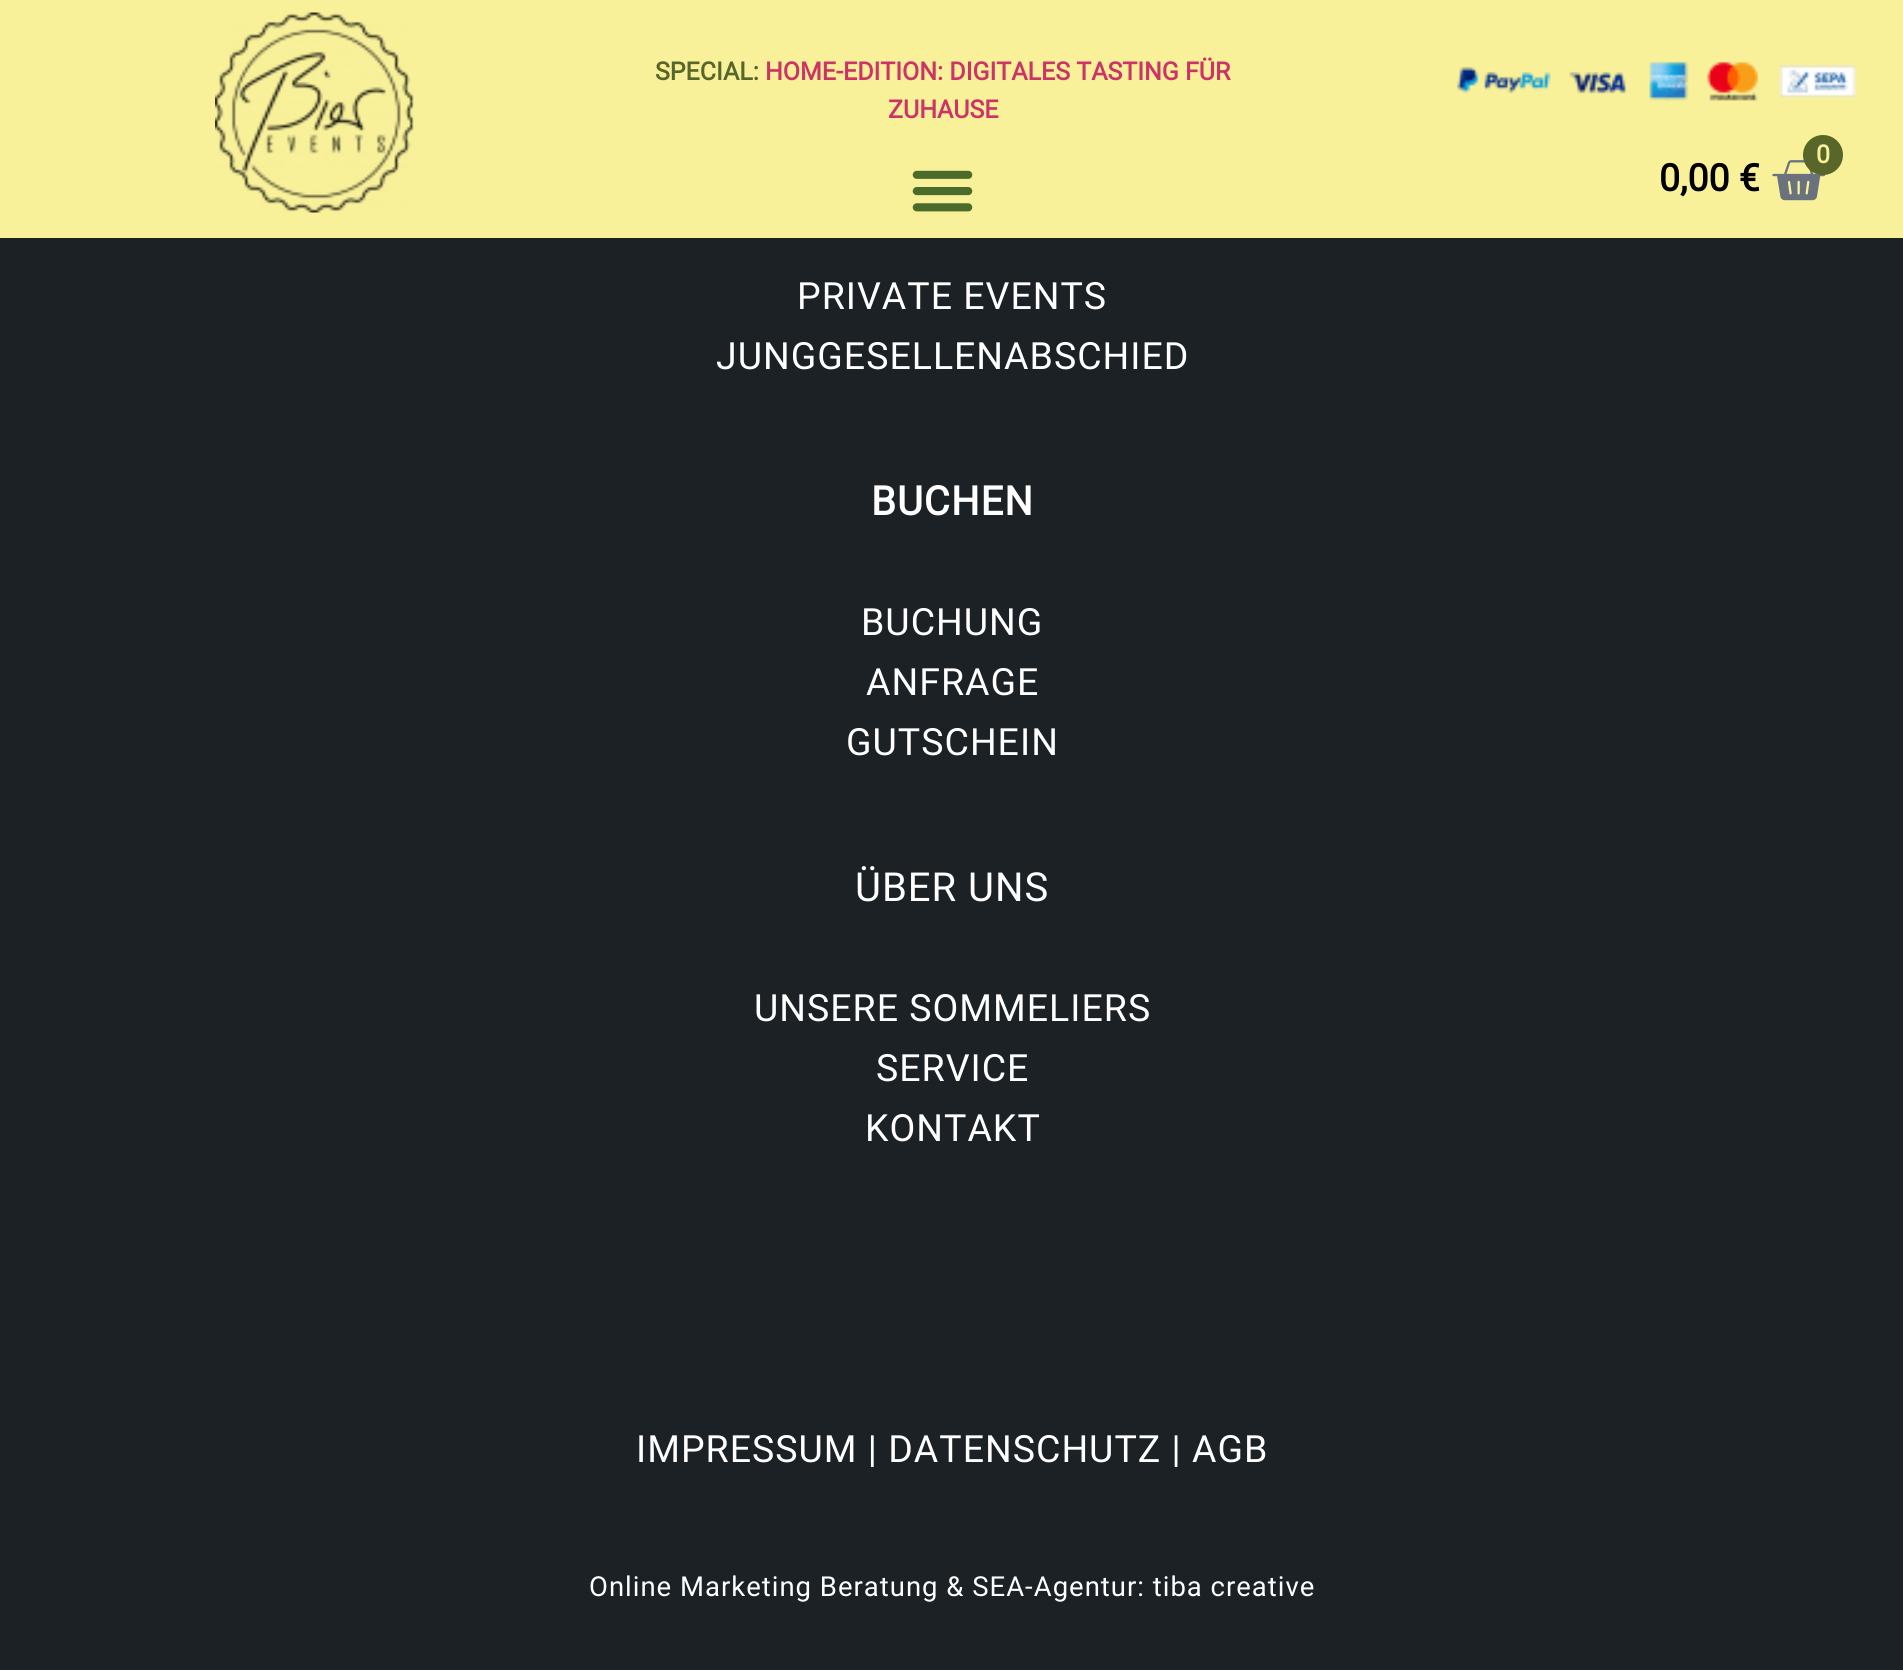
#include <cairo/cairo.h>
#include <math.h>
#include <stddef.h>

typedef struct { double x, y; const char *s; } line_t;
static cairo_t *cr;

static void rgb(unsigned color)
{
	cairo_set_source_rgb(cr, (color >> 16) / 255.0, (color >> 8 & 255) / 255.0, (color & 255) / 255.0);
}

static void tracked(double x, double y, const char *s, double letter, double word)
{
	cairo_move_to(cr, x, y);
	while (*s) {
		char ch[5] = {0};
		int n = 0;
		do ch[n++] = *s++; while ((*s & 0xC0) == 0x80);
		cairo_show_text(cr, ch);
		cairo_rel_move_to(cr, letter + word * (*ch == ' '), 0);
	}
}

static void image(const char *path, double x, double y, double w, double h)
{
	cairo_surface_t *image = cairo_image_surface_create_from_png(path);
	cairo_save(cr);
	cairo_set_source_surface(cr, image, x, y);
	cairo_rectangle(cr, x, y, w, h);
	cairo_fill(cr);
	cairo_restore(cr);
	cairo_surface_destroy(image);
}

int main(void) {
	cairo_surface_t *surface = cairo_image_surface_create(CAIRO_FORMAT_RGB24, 1903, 1670);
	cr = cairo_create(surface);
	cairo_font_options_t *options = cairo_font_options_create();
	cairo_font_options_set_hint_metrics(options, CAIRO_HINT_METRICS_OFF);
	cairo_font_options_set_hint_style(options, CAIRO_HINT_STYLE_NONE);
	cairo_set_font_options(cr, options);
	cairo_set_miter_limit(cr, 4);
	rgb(0x1c2125);
	cairo_paint(cr);
	rgb(0xf9f19a);
	cairo_rectangle(cr, 0, 0, 1903, 238);
	cairo_fill(cr);
	image("img/1.png", 215, 12, 199, 201);
	image("img/2.png", 912, 170, 61, 42);
	image("img/3.png", 1456, 61, 400, 40);
	image("img/4.png", 1772, 160, 53, 41);
	rgb(0x586629);
	cairo_arc(cr, 1823, 155, 20, 0, 2 * M_PI);
	cairo_fill(cr);
	cairo_select_font_face(cr, "Roboto", CAIRO_FONT_SLANT_NORMAL, CAIRO_FONT_WEIGHT_BOLD);
	cairo_set_font_size(cr, 25);
	cairo_move_to(cr, 655, 80);
	cairo_show_text(cr, "SPECIAL:");
	rgb(0xcc3366);
	cairo_move_to(cr, 765, 80);
	cairo_show_text(cr, "HOME-EDITION: DIGITALES TASTING FÜR");
	cairo_move_to(cr, 888, 118);
	cairo_show_text(cr, "ZUHAUSE");
	rgb(0xf9f19a);
	cairo_move_to(cr, 1816, 163);
	cairo_show_text(cr, "0");
	cairo_set_font_size(cr, 37.5);
	rgb(0x000000);
	cairo_move_to(cr, 1659, 191);
	cairo_show_text(cr, "0,00 €");
	cairo_select_font_face(cr, "Roboto", CAIRO_FONT_SLANT_NORMAL, CAIRO_FONT_WEIGHT_NORMAL);
	rgb(0xffffff);
	tracked(797, 309, "PRIVATE EVENTS", 1, 0);
	tracked(716, 369, "JUNGGESELLENABSCHIED", 1, 0);
	cairo_select_font_face(cr, "Roboto", CAIRO_FONT_SLANT_NORMAL, CAIRO_FONT_WEIGHT_BOLD);
	cairo_set_font_size(cr, 40);
	tracked(871, 515, "BUCHEN", 1, 0);
	cairo_select_font_face(cr, "Roboto", CAIRO_FONT_SLANT_NORMAL, CAIRO_FONT_WEIGHT_NORMAL);
	cairo_set_font_size(cr, 37.5);
	{
		static const line_t items[] = {
			{861, 635, "BUCHUNG"},
			{866, 695, "ANFRAGE"},
			{846, 755, "GUTSCHEIN"},
		};
		for (size_t i = 0; i < sizeof items / sizeof *items; i++) {
			tracked(items[i].x, items[i].y, items[i].s, 1, 0);
		}
	}
	cairo_set_font_size(cr, 40);
	tracked(855, 901, "ÜBER UNS", 1, 0);
	cairo_set_font_size(cr, 37.5);
	{
		static const line_t items[] = {
			{754, 1021, "UNSERE SOMMELIERS"},
			{876, 1081, "SERVICE"},
			{865, 1141, "KONTAKT"},
			{636, 1462, "IMPRESSUM | DATENSCHUTZ | AGB"},
		};
		for (size_t i = 0; i < sizeof items / sizeof *items; i++) {
			tracked(items[i].x, items[i].y, items[i].s, 1, 0);
		}
	}
	cairo_set_font_size(cr, 27.5);
	tracked(589, 1596, "Online Marketing Beratung & SEA-Agentur: tiba creative", 1, 0);
	cairo_surface_write_to_png(surface, "page.png");
	cairo_font_options_destroy(options);
	cairo_destroy(cr);
	cairo_surface_destroy(surface);
	return 0;
}
